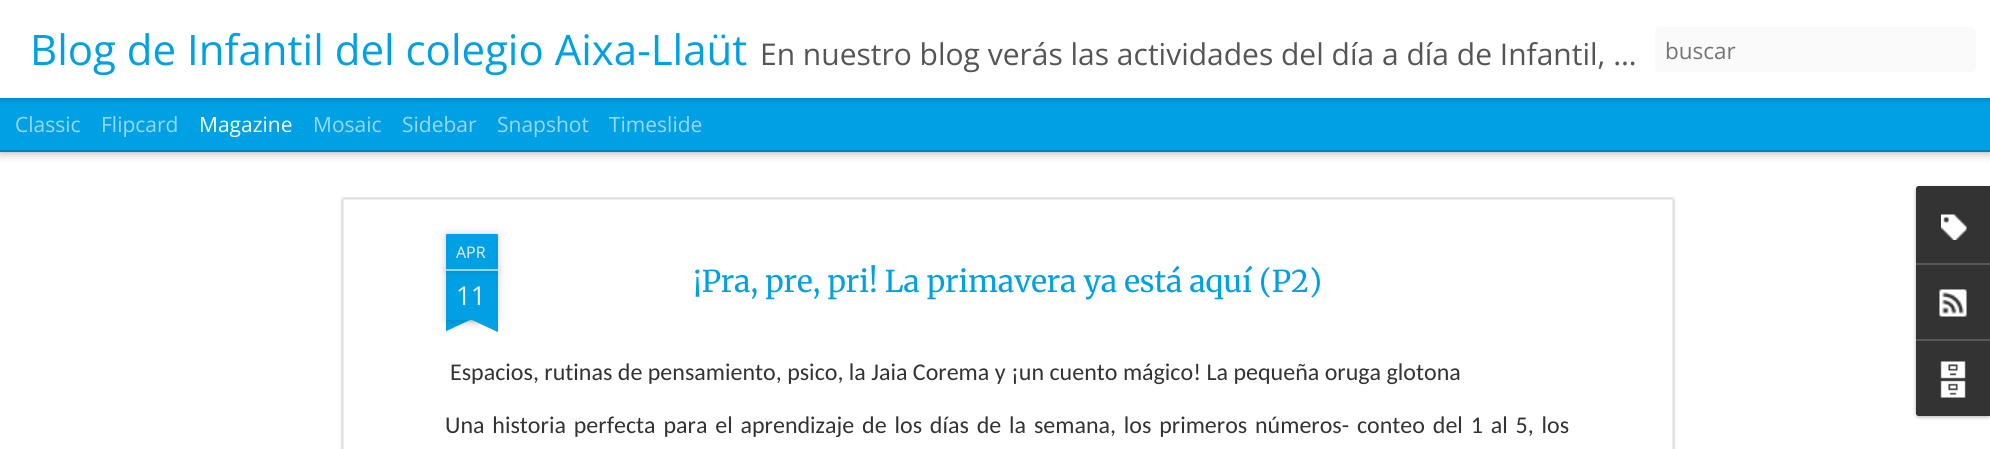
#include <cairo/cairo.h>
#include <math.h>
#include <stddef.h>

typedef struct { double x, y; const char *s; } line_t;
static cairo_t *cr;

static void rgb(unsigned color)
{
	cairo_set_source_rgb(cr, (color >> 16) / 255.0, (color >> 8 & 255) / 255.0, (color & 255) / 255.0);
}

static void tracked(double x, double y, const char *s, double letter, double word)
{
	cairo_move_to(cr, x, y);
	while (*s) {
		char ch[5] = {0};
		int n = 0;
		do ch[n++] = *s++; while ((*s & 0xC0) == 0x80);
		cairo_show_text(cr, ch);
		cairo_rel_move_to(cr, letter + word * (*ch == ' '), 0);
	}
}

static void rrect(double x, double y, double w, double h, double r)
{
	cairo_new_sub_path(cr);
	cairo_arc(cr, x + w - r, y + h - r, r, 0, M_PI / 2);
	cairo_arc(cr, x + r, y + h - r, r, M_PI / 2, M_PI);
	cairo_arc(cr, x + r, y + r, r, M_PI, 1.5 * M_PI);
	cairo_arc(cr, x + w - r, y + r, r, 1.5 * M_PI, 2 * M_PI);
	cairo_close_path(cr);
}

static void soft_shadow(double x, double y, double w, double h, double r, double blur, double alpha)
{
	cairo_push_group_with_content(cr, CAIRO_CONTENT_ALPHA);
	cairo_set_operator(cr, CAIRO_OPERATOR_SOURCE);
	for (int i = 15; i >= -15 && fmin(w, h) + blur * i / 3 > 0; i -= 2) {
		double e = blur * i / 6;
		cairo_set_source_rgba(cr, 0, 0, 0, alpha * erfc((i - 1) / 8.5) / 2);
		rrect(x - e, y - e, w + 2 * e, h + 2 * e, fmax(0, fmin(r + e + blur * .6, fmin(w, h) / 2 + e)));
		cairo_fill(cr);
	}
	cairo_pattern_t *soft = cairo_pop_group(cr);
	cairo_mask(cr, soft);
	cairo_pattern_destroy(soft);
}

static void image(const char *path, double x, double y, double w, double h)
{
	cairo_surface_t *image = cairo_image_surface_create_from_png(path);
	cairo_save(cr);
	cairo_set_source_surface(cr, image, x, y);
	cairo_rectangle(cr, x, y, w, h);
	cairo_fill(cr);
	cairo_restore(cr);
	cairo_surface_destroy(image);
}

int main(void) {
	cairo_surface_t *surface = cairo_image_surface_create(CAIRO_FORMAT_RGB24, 1990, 449);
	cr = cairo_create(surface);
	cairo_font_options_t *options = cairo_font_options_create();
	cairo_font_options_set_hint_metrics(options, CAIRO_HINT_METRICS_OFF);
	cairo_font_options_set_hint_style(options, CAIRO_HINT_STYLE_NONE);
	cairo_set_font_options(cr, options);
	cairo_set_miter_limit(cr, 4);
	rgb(0x00a1e4);
	cairo_paint(cr);
	rgb(0xffffff);
	cairo_rectangle(cr, 0, 152, 1990, 297);
	cairo_fill(cr);
	rgb(0x000000);
	soft_shadow(0, 98, 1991, 52, 0, 6, 0.5);
	rgb(0x00a1e4);
	cairo_rectangle(cr, 0, 98, 1990, 52);
	cairo_fill(cr);
	rgb(0x000000);
	soft_shadow(0, 0, 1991, 98, 0, 4, 0.3);
	rgb(0xffffff);
	cairo_rectangle(cr, 0, 0, 1990, 98);
	cairo_fill(cr);
	rgb(0xfafafa);
	rrect(1655, 27, 321, 45, 5);
	cairo_fill(cr);
	image("img/1.png", 340, 197, 1336, 252);
	rgb(0x000000);
	soft_shadow(446, 270, 52, 50, 0, 4, 0.2);
	rgb(0x00a1e4);
	cairo_rectangle(cr, 446, 270, 52, 50);
	cairo_fill(cr);
	rgb(0x000000);
	soft_shadow(446, 234, 52, 36, 1.5, 4, 0.2);
	rgb(0x00a1e4);
	cairo_new_path(cr);
	cairo_move_to(cr, 447.5, 234);
	cairo_line_to(cr, 496.5, 234);
	cairo_curve_to(cr, 497.5, 234, 498, 234.5, 498, 235.5);
	cairo_line_to(cr, 498, 270);
	cairo_line_to(cr, 446, 270);
	cairo_line_to(cr, 446, 235.5);
	cairo_curve_to(cr, 446, 234.5, 446.5, 234, 447.5, 234);
	cairo_close_path(cr);
	cairo_fill(cr);
	cairo_set_source_rgba(cr, 1, 1, 1, 0.6);
	cairo_rectangle(cr, 446, 269, 52, 2);
	cairo_fill(cr);
	cairo_save(cr);
	cairo_rectangle(cr, 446, 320, 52, 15);
	cairo_clip(cr);
	rgb(0x000000);
	soft_shadow(432, 305, 75, 15, 0, 4, 0.2);
	cairo_restore(cr);
	cairo_save(cr);
	cairo_rectangle(cr, 446, 320, 52, 15);
	cairo_clip(cr);
	rgb(0x00a1e4);
	cairo_new_path(cr);
	cairo_move_to(cr, 432, 321);
	cairo_line_to(cr, 500, 289);
	cairo_line_to(cr, 506, 303);
	cairo_line_to(cr, 438, 335);
	cairo_close_path(cr);
	cairo_fill(cr);
	cairo_restore(cr);
	cairo_save(cr);
	cairo_rectangle(cr, 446, 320, 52, 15);
	cairo_clip(cr);
	rgb(0x000000);
	soft_shadow(437, 305, 75, 15, 0, 4, 0.2);
	cairo_restore(cr);
	cairo_save(cr);
	cairo_rectangle(cr, 446, 320, 52, 15);
	cairo_clip(cr);
	rgb(0x00a1e4);
	cairo_new_path(cr);
	cairo_move_to(cr, 442, 289);
	cairo_line_to(cr, 510, 321);
	cairo_line_to(cr, 504, 335);
	cairo_line_to(cr, 436, 303);
	cairo_close_path(cr);
	cairo_fill(cr);
	cairo_restore(cr);
	rgb(0x000000);
	soft_shadow(1916, 188, 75, 229, 3, 2, 0.3);
	rgb(0x333333);
	cairo_new_path(cr);
	cairo_move_to(cr, 1919, 186);
	cairo_line_to(cr, 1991, 186);
	cairo_line_to(cr, 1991, 416);
	cairo_line_to(cr, 1919, 416);
	cairo_curve_to(cr, 1917.5, 416, 1916, 414.5, 1916, 413);
	cairo_line_to(cr, 1916, 189);
	cairo_curve_to(cr, 1916, 187.5, 1917.5, 186, 1919, 186);
	cairo_close_path(cr);
	cairo_fill(cr);
	cairo_new_path(cr);
	cairo_move_to(cr, 1919, 186);
	cairo_line_to(cr, 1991, 186);
	cairo_line_to(cr, 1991, 263);
	cairo_line_to(cr, 1916, 263);
	cairo_line_to(cr, 1916, 189);
	cairo_curve_to(cr, 1916, 187.5, 1917.5, 186, 1919, 186);
	cairo_close_path(cr);
	cairo_fill(cr);
	image("img/2.png", 1941, 214, 26, 26);
	rgb(0x585858);
	cairo_rectangle(cr, 1916, 263, 74, 2);
	cairo_fill(cr);
	image("img/3.png", 1939, 289, 28, 28);
	rgb(0x333333);
	cairo_new_path(cr);
	cairo_move_to(cr, 1916, 339);
	cairo_line_to(cr, 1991, 339);
	cairo_line_to(cr, 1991, 416);
	cairo_line_to(cr, 1919, 416);
	cairo_curve_to(cr, 1917.5, 416, 1916, 414.5, 1916, 413);
	cairo_close_path(cr);
	cairo_fill(cr);
	rgb(0x585858);
	cairo_rectangle(cr, 1916, 339, 74, 2);
	cairo_fill(cr);
	image("img/4.png", 1940, 361, 26, 37);
	cairo_select_font_face(cr, "Open Sans", CAIRO_FONT_SLANT_NORMAL, CAIRO_FONT_WEIGHT_NORMAL);
	cairo_set_font_size(cr, 42);
	rgb(0x00a1e4);
	cairo_move_to(cr, 30, 65);
	cairo_show_text(cr, "Blog de Infantil del colegio Aixa-Llaüt");
	cairo_set_font_size(cr, 30);
	rgb(0x555555);
	cairo_move_to(cr, 760, 65);
	cairo_show_text(cr, "En nuestro blog verás las actividades del día a día de Infantil, …");
	cairo_set_font_size(cr, 22.5);
	rgb(0x757575);
	cairo_move_to(cr, 1665, 59);
	cairo_show_text(cr, "buscar");
	cairo_set_font_size(cr, 21);
	rgb(0x99d9f4);
	cairo_move_to(cr, 15, 132);
	cairo_show_text(cr, "Classic");
	cairo_move_to(cr, 101, 132);
	cairo_show_text(cr, "Flipcard");
	rgb(0xffffff);
	cairo_move_to(cr, 199, 132);
	cairo_show_text(cr, "Magazine");
	rgb(0x99d9f4);
	{
		static const line_t items[] = {
			{313, 132, "Mosaic"},
			{402, 132, "Sidebar"},
			{497, 132, "Snapshot"},
			{609, 132, "Timeslide"},
		};
		for (size_t i = 0; i < sizeof items / sizeof *items; i++) {
			cairo_move_to(cr, items[i].x, items[i].y);
			cairo_show_text(cr, items[i].s);
		}
	}
	cairo_set_font_size(cr, 16);
	rgb(0xeeeeee);
	cairo_move_to(cr, 456, 258);
	cairo_show_text(cr, "APR");
	cairo_set_font_size(cr, 26);
	cairo_move_to(cr, 456, 305);
	cairo_show_text(cr, "11");
	cairo_select_font_face(cr, "Merriweather Light", CAIRO_FONT_SLANT_NORMAL, CAIRO_FONT_WEIGHT_NORMAL);
	cairo_set_font_size(cr, 30);
	rgb(0x00a1e4);
	cairo_move_to(cr, 693, 292);
	cairo_show_text(cr, "¡Pra, pre, pri! La primavera ya está aquí (P2)");
	cairo_select_font_face(cr, "Carlito", CAIRO_FONT_SLANT_NORMAL, CAIRO_FONT_WEIGHT_NORMAL);
	cairo_set_font_size(cr, 24);
	rgb(0x333333);
	cairo_move_to(cr, 450, 380);
	cairo_show_text(cr, "Espacios, rutinas de pensamiento, psico, la Jaia Corema y ¡un cuento mágico! La pequeña oruga glotona");
	tracked(445, 433, "Una historia perfecta para el aprendizaje de los días de la semana, los primeros números- conteo del 1 al 5, los", 0, 2.4);
	cairo_surface_write_to_png(surface, "page.png");
	cairo_font_options_destroy(options);
	cairo_destroy(cr);
	cairo_surface_destroy(surface);
	return 0;
}
